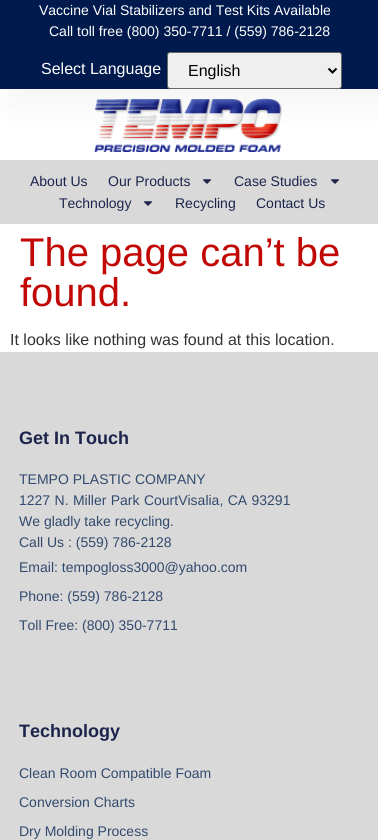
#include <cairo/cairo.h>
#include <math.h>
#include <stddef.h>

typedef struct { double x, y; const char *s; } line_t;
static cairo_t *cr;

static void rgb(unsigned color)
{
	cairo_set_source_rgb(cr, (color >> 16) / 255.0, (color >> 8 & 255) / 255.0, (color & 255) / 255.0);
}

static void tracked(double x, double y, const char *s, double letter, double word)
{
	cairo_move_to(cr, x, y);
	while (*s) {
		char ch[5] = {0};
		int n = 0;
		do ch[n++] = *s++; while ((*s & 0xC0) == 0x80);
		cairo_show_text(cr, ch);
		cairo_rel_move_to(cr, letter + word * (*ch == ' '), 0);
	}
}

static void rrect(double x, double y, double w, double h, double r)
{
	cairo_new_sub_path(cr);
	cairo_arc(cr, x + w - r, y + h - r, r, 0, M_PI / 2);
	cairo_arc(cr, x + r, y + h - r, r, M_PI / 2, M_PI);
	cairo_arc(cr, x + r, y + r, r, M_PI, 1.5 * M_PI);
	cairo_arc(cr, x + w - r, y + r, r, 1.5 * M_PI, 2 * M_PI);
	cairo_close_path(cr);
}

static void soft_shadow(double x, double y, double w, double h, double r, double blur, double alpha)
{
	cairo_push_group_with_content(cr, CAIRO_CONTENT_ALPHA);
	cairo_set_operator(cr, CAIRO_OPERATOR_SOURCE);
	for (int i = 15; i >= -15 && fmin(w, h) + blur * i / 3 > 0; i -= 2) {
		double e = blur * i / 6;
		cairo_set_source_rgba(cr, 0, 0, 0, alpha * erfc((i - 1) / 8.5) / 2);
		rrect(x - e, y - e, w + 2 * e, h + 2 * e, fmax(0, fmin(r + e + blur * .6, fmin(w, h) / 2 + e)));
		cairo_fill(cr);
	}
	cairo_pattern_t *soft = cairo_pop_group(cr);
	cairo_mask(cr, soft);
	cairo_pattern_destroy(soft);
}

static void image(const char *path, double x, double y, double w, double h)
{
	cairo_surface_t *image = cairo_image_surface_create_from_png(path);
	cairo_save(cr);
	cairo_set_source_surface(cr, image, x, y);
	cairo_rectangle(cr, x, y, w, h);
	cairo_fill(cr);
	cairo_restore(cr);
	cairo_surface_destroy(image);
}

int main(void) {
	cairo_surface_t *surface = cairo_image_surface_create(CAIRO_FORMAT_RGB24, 378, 840);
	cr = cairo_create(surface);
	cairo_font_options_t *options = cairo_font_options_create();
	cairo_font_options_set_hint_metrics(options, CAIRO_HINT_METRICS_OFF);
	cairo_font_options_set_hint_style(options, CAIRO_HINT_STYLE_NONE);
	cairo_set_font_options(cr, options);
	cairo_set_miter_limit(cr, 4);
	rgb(0xffffff);
	cairo_paint(cr);
	image("img/1.png", 94, 98, 188, 54);
	rgb(0x000000);
	soft_shadow(10, 10, 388, 99, 0, 15, 0.04);
	rgb(0x001a4d);
	cairo_rectangle(cr, 0, 0, 378, 89);
	cairo_fill(cr);
	rgb(0xefefef);
	rrect(167.5, 52.5, 174, 36, 2.5);
	cairo_fill_preserve(cr);
	rgb(0x666666);
	cairo_set_line_width(cr, 1);
	cairo_stroke(cr);
	cairo_new_path(cr);
	cairo_move_to(cr, 328.5, 68.5);
	cairo_line_to(cr, 332.5, 72.5);
	cairo_line_to(cr, 336.5, 68.5);
	rgb(0x000000);
	cairo_set_line_width(cr, 2);
	cairo_stroke(cr);
	rgb(0xd9d9d9);
	cairo_rectangle(cr, 0, 160, 378, 64);
	cairo_fill(cr);
	image("img/2.png", 203, 179, 8, 5);
	image("img/2.png", 331, 179, 8, 5);
	image("img/2.png", 144, 201, 8, 5);
	cairo_rectangle(cr, 0, 352, 378, 488);
	cairo_fill(cr);
	cairo_select_font_face(cr, "Liberation Sans", CAIRO_FONT_SLANT_NORMAL, CAIRO_FONT_WEIGHT_NORMAL);
	cairo_set_font_size(cr, 14);
	rgb(0xffffff);
	cairo_move_to(cr, 39, 15);
	cairo_show_text(cr, "Vaccine Vial Stabilizers and Test Kits Available");
	cairo_move_to(cr, 49, 36);
	cairo_show_text(cr, "Call toll free (800) 350-7711 / (559) 786-2128");
	cairo_set_font_size(cr, 16);
	cairo_move_to(cr, 41, 74);
	cairo_show_text(cr, "Select Language");
	rgb(0x000000);
	cairo_move_to(cr, 188, 76);
	cairo_show_text(cr, "English");
	cairo_set_font_size(cr, 14);
	rgb(0x1c244b);
	{
		static const line_t items[] = {
			{30, 186, "About Us"},
			{108, 186, "Our Products"},
			{234, 186, "Case Studies"},
			{59, 208, "Technology"},
			{175, 208, "Recycling"},
			{256, 208, "Contact Us"},
		};
		for (size_t i = 0; i < sizeof items / sizeof *items; i++) {
			cairo_move_to(cr, items[i].x, items[i].y);
			cairo_show_text(cr, items[i].s);
		}
	}
	cairo_set_font_size(cr, 40);
	rgb(0xc20805);
	cairo_move_to(cr, 20, 266);
	cairo_show_text(cr, "The page can’t be");
	cairo_move_to(cr, 20, 306);
	cairo_show_text(cr, "found.");
	cairo_set_font_size(cr, 16);
	rgb(0x333333);
	cairo_move_to(cr, 10, 345);
	cairo_show_text(cr, "It looks like nothing was found at this location.");
	cairo_select_font_face(cr, "Liberation Sans", CAIRO_FONT_SLANT_NORMAL, CAIRO_FONT_WEIGHT_BOLD);
	cairo_set_font_size(cr, 18);
	rgb(0x1c244b);
	cairo_move_to(cr, 19, 444);
	cairo_show_text(cr, "Get In Touch");
	cairo_select_font_face(cr, "Liberation Sans", CAIRO_FONT_SLANT_NORMAL, CAIRO_FONT_WEIGHT_NORMAL);
	cairo_set_font_size(cr, 14);
	rgb(0x324a6d);
	cairo_move_to(cr, 19, 484);
	cairo_show_text(cr, "TEMPO PLASTIC COMPANY");
	tracked(19, 505, "1227 N. Miller Park CourtVisalia, CA 93291", 0, 0.5);
	{
		static const line_t items[] = {
			{19, 526, "We gladly take recycling."},
			{19, 547, "Call Us : (559) 786-2128"},
			{19, 572, "Email: tempogloss3000@yahoo.com"},
			{19, 601, "Phone: (559) 786-2128"},
			{19, 630, "Toll Free: (800) 350-7711"},
		};
		for (size_t i = 0; i < sizeof items / sizeof *items; i++) {
			cairo_move_to(cr, items[i].x, items[i].y);
			cairo_show_text(cr, items[i].s);
		}
	}
	cairo_select_font_face(cr, "Liberation Sans", CAIRO_FONT_SLANT_NORMAL, CAIRO_FONT_WEIGHT_BOLD);
	cairo_set_font_size(cr, 18);
	rgb(0x1c244b);
	cairo_move_to(cr, 19, 737);
	cairo_show_text(cr, "Technology");
	cairo_select_font_face(cr, "Liberation Sans", CAIRO_FONT_SLANT_NORMAL, CAIRO_FONT_WEIGHT_NORMAL);
	cairo_set_font_size(cr, 14);
	rgb(0x324a6d);
	{
		static const line_t items[] = {
			{19, 778, "Clean Room Compatible Foam"},
			{19, 807, "Conversion Charts"},
			{19, 836, "Dry Molding Process"},
		};
		for (size_t i = 0; i < sizeof items / sizeof *items; i++) {
			cairo_move_to(cr, items[i].x, items[i].y);
			cairo_show_text(cr, items[i].s);
		}
	}
	cairo_surface_write_to_png(surface, "page.png");
	cairo_font_options_destroy(options);
	cairo_destroy(cr);
	cairo_surface_destroy(surface);
	return 0;
}
